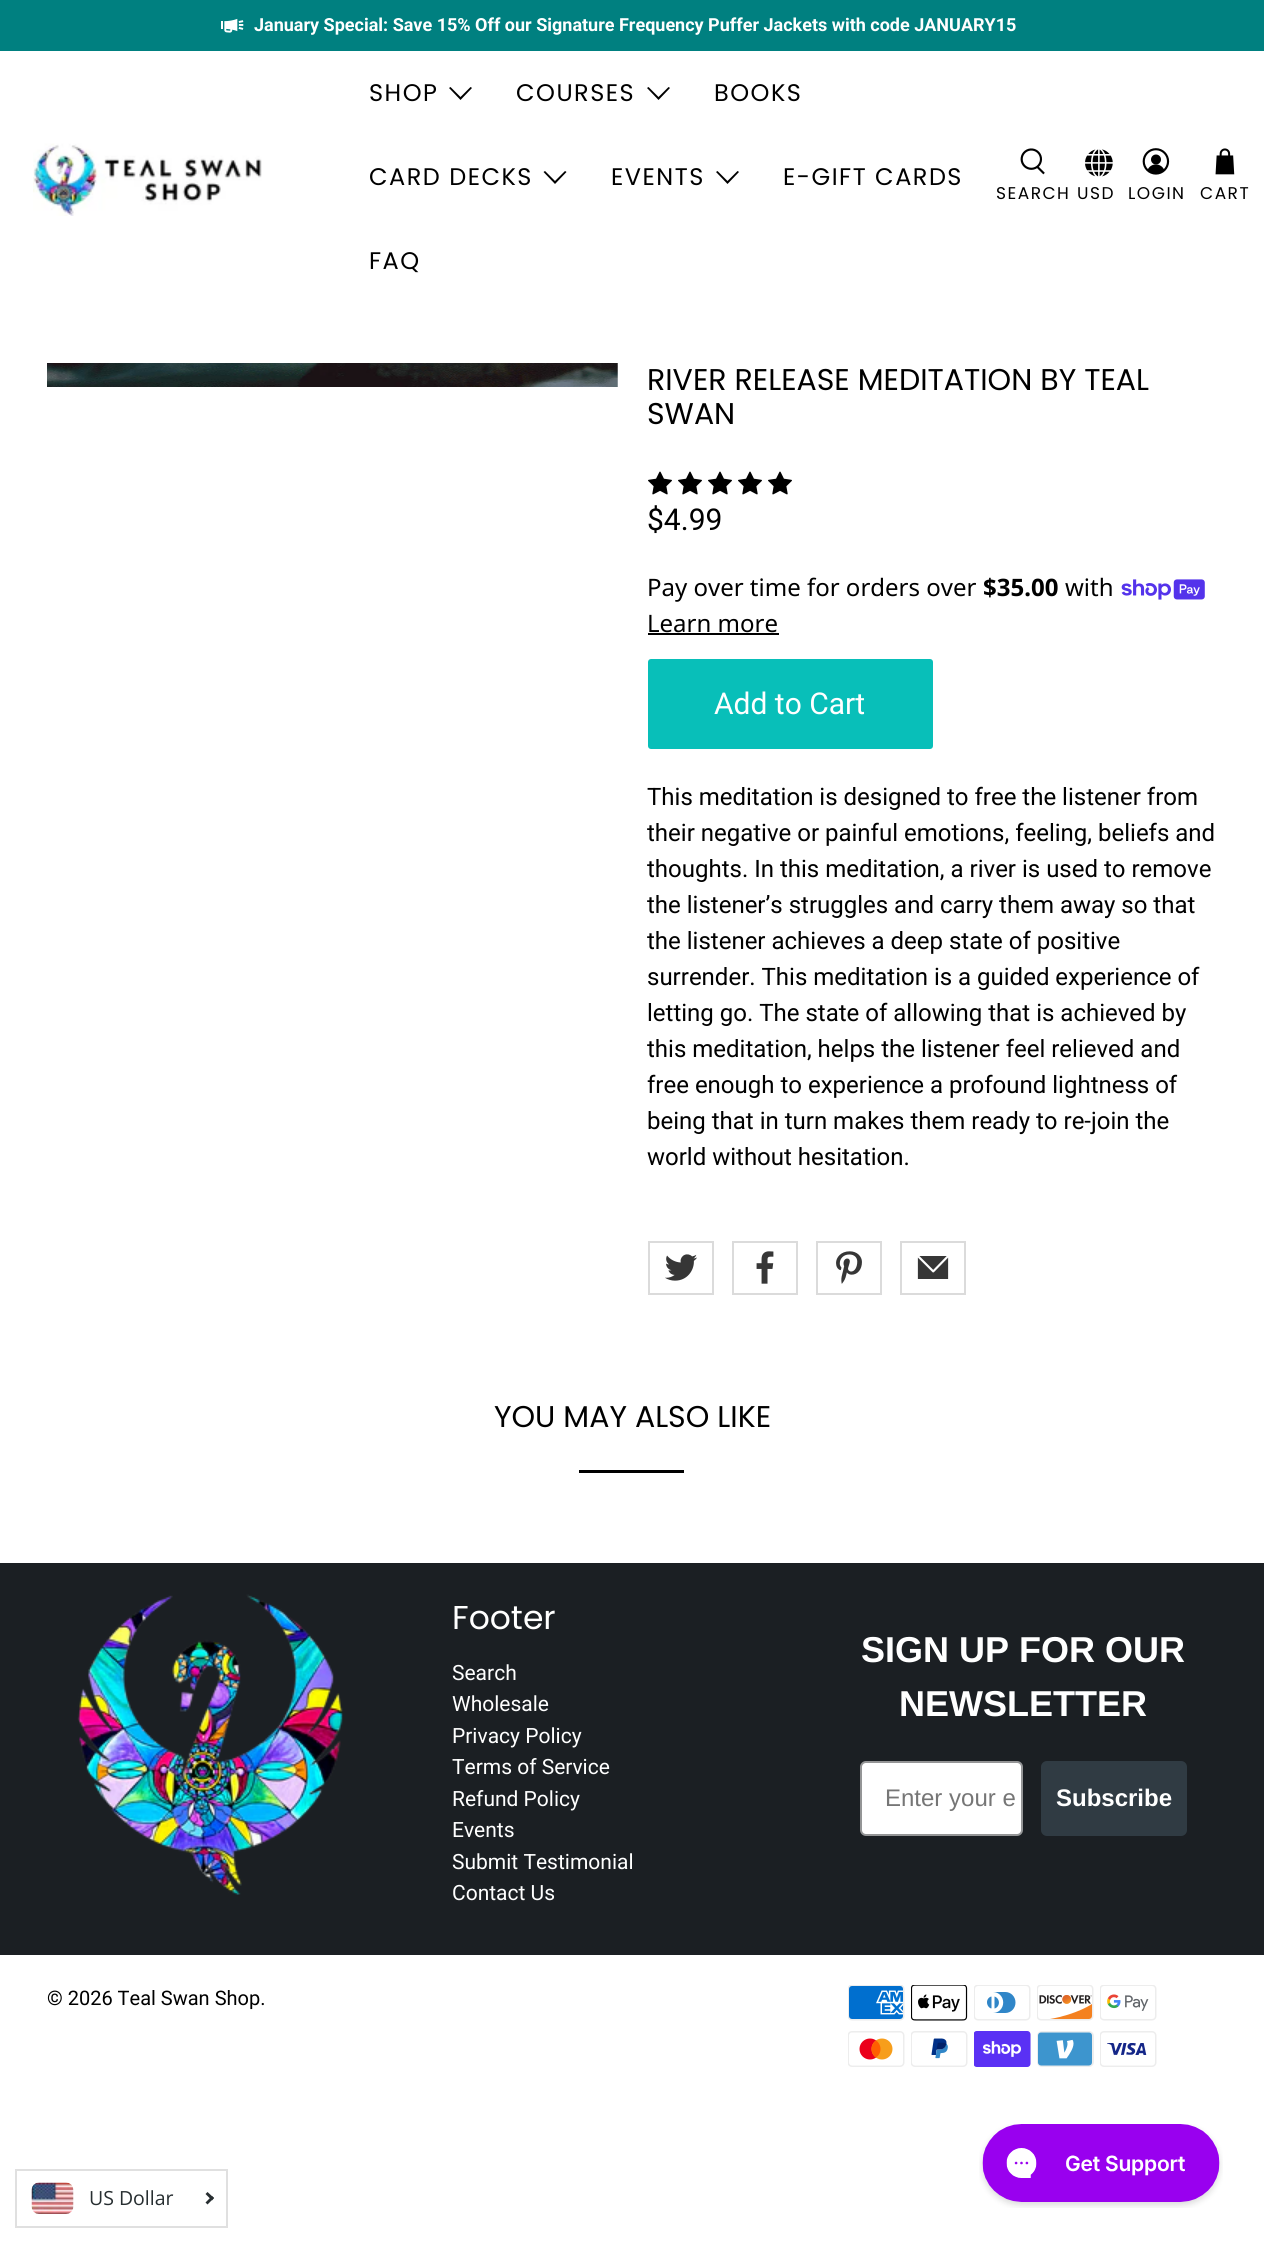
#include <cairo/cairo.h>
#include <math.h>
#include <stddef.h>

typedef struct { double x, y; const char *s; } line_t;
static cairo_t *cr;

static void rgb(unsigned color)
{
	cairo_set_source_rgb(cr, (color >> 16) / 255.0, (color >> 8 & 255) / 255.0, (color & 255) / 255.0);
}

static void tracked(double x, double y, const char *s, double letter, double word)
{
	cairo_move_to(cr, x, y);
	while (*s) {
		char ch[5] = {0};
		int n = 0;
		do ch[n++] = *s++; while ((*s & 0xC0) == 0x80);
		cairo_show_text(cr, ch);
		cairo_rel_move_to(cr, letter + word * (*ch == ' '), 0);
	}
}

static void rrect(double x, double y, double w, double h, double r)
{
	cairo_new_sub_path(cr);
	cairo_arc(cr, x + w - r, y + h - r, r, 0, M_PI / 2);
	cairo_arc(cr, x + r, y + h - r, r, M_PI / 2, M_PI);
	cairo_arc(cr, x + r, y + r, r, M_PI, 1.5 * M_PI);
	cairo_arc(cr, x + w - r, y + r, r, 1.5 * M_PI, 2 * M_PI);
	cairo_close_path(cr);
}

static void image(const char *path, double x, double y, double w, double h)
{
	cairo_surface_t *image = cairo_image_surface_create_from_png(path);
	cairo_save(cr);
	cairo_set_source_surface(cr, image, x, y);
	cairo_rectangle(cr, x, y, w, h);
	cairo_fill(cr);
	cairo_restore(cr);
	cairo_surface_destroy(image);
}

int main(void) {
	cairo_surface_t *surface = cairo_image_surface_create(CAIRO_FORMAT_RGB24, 1264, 2242);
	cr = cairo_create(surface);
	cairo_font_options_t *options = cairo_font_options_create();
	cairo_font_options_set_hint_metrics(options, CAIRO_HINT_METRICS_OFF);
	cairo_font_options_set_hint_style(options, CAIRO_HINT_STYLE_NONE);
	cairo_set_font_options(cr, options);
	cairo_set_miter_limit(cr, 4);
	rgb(0xffffff);
	cairo_paint(cr);
	rgb(0x008080);
	cairo_rectangle(cr, 0, 0, 1264, 51);
	cairo_fill(cr);
	image("img/1.png", 221, 18, 23, 15);
	image("img/2.png", 33, 143, 229, 73);
	rgb(0x000000);
	cairo_new_path(cr);
	cairo_move_to(cr, 460.5, 100);
	cairo_line_to(cr, 449, 88);
	cairo_line_to(cr, 450.5, 87);
	cairo_line_to(cr, 460.5, 97);
	cairo_line_to(cr, 470.5, 87);
	cairo_line_to(cr, 472, 88);
	cairo_close_path(cr);
	cairo_fill(cr);
	cairo_new_path(cr);
	cairo_move_to(cr, 658.5, 100);
	cairo_line_to(cr, 647, 88);
	cairo_line_to(cr, 648.5, 87);
	cairo_line_to(cr, 658.5, 97);
	cairo_line_to(cr, 668.5, 87);
	cairo_line_to(cr, 670, 88);
	cairo_close_path(cr);
	cairo_fill(cr);
	cairo_new_path(cr);
	cairo_move_to(cr, 555, 184);
	cairo_line_to(cr, 543.5, 172);
	cairo_line_to(cr, 545, 171);
	cairo_line_to(cr, 555, 181);
	cairo_line_to(cr, 565, 171);
	cairo_line_to(cr, 566.5, 172);
	cairo_close_path(cr);
	cairo_fill(cr);
	cairo_new_path(cr);
	cairo_move_to(cr, 727.5, 184);
	cairo_line_to(cr, 716, 172);
	cairo_line_to(cr, 717.5, 171);
	cairo_line_to(cr, 727.5, 181);
	cairo_line_to(cr, 737.5, 171);
	cairo_line_to(cr, 739, 172);
	cairo_close_path(cr);
	cairo_fill(cr);
	image("img/3.png", 1020, 148, 25, 27);
	image("img/4.png", 1085, 149, 28, 28);
	image("img/5.png", 1142, 148, 28, 27);
	image("img/6.png", 1215, 148, 20, 27);
	image("img/7.png", 47, 363, 571, 24);
	image("img/8.png", 648, 471, 24, 24);
	image("img/8.png", 678, 471, 24, 24);
	image("img/8.png", 708, 471, 24, 24);
	image("img/8.png", 738, 471, 24, 24);
	image("img/8.png", 768, 471, 24, 24);
	image("img/9.png", 1121, 579, 84, 21);
	cairo_rectangle(cr, 648, 633, 131, 2);
	cairo_fill(cr);
	rgb(0x08bfb9);
	rrect(648, 659, 285, 90, 3);
	cairo_fill(cr);
	cairo_rectangle(cr, 649, 1242, 64, 52);
	rgb(0xdbdbdb);
	cairo_stroke(cr);
	image("img/10.png", 665, 1254, 32, 27);
	cairo_rectangle(cr, 733, 1242, 64, 52);
	cairo_stroke(cr);
	image("img/11.png", 756, 1251, 18, 33);
	cairo_rectangle(cr, 817, 1242, 64, 52);
	cairo_stroke(cr);
	image("img/12.png", 836, 1251, 26, 33);
	cairo_rectangle(cr, 901, 1242, 64, 52);
	cairo_stroke(cr);
	image("img/13.png", 917, 1256, 32, 23);
	rgb(0x000000);
	cairo_rectangle(cr, 579, 1470, 105, 3);
	cairo_fill(cr);
	rgb(0x1b1f23);
	cairo_rectangle(cr, 0, 1563, 1264, 392);
	cairo_fill(cr);
	image("img/14.png", 77, 1594, 266, 301);
	rgb(0xffffff);
	rrect(861, 1762, 161, 73, 5);
	cairo_fill_preserve(cr);
	rgb(0x949596);
	cairo_stroke(cr);
	rgb(0x303b43);
	rrect(1041, 1761, 146, 75, 6);
	cairo_fill(cr);
	image("img/15.png", 848, 1985, 57, 36);
	image("img/16.png", 911, 1985, 57, 36);
	image("img/17.png", 974, 1985, 57, 36);
	image("img/18.png", 1037, 1985, 57, 36);
	image("img/19.png", 1100, 1985, 57, 36);
	image("img/20.png", 848, 2031, 57, 36);
	image("img/21.png", 911, 2031, 57, 36);
	image("img/22.png", 974, 2031, 57, 36);
	image("img/23.png", 1037, 2031, 57, 36);
	image("img/24.png", 1100, 2031, 57, 36);
	cairo_rectangle(cr, 16, 2170, 211, 57);
	rgb(0xe0e0e0);
	cairo_stroke(cr);
	image("img/25.png", 31, 2182, 43, 32);
	rgb(0x272e31);
	cairo_new_path(cr);
	cairo_move_to(cr, 207.5, 2192);
	cairo_line_to(cr, 214, 2198);
	cairo_line_to(cr, 212, 2200.5);
	cairo_line_to(cr, 205.5, 2194);
	cairo_close_path(cr);
	cairo_fill(cr);
	cairo_new_path(cr);
	cairo_move_to(cr, 212, 2196);
	cairo_line_to(cr, 214, 2198);
	cairo_line_to(cr, 207.5, 2204.5);
	cairo_line_to(cr, 205.5, 2202.5);
	cairo_close_path(cr);
	cairo_fill(cr);
	image("img/26.png", 979, 2124, 244, 84);
	cairo_select_font_face(cr, "Roboto", CAIRO_FONT_SLANT_NORMAL, CAIRO_FONT_WEIGHT_BOLD);
	cairo_set_font_size(cr, 18);
	rgb(0xffffff);
	cairo_move_to(cr, 254, 31);
	cairo_show_text(cr, "January Special: Save 15% Off our Signature Frequency Puffer Jackets with code JANUARY15");
	cairo_select_font_face(cr, "Poppins", CAIRO_FONT_SLANT_NORMAL, CAIRO_FONT_WEIGHT_NORMAL);
	cairo_set_font_size(cr, 24);
	rgb(0x000000);
	{
		static const line_t items[] = {
			{369, 101, "SHOP"},
			{516, 101, "COURSES"},
			{714, 101, "BOOKS"},
			{369, 185, "CARD DECKS"},
			{611, 185, "EVENTS"},
			{783, 185, "E-GIFT CARDS"},
			{369, 269, "FAQ"},
		};
		for (size_t i = 0; i < sizeof items / sizeof *items; i++) {
			tracked(items[i].x, items[i].y, items[i].s, 1.5, 0);
		}
	}
	cairo_set_font_size(cr, 17);
	{
		static const line_t items[] = {
			{996, 199, "SEARCH"},
			{1077, 199, "USD"},
			{1128, 199, "LOGIN"},
			{1200, 199, "CART"},
		};
		for (size_t i = 0; i < sizeof items / sizeof *items; i++) {
			tracked(items[i].x, items[i].y, items[i].s, 1.5, 0);
		}
	}
	cairo_set_font_size(cr, 30);
	cairo_move_to(cr, 647, 390);
	cairo_show_text(cr, "RIVER RELEASE MEDITATION BY TEAL");
	cairo_move_to(cr, 647, 424);
	cairo_show_text(cr, "SWAN");
	cairo_select_font_face(cr, "Roboto", CAIRO_FONT_SLANT_NORMAL, CAIRO_FONT_WEIGHT_NORMAL);
	cairo_move_to(cr, 647, 530);
	cairo_show_text(cr, "$4.99");
	cairo_select_font_face(cr, "Noto Sans", CAIRO_FONT_SLANT_NORMAL, CAIRO_FONT_WEIGHT_NORMAL);
	cairo_set_font_size(cr, 24);
	cairo_move_to(cr, 647, 596);
	cairo_show_text(cr, "Pay over time for orders over");
	cairo_select_font_face(cr, "Noto Sans", CAIRO_FONT_SLANT_NORMAL, CAIRO_FONT_WEIGHT_BOLD);
	cairo_move_to(cr, 983, 596);
	cairo_show_text(cr, "$35.00");
	cairo_select_font_face(cr, "Noto Sans", CAIRO_FONT_SLANT_NORMAL, CAIRO_FONT_WEIGHT_NORMAL);
	cairo_move_to(cr, 1065, 596);
	cairo_show_text(cr, "with");
	cairo_move_to(cr, 647, 632);
	cairo_show_text(cr, "Learn more");
	cairo_select_font_face(cr, "Roboto", CAIRO_FONT_SLANT_NORMAL, CAIRO_FONT_WEIGHT_NORMAL);
	cairo_set_font_size(cr, 30);
	rgb(0xffffff);
	cairo_move_to(cr, 714, 714);
	cairo_show_text(cr, "Add to Cart");
	cairo_set_font_size(cr, 24);
	rgb(0x000000);
	{
		static const line_t items[] = {
			{647, 805, "This meditation is designed to free the listener from"},
			{647, 841, "their negative or painful emotions, feeling, beliefs and"},
			{647, 877, "thoughts. In this meditation, a river is used to remove"},
			{647, 913, "the listener’s struggles and carry them away so that"},
			{647, 949, "the listener achieves a deep state of positive"},
			{647, 985, "surrender. This meditation is a guided experience of"},
			{647, 1021, "letting go. The state of allowing that is achieved by"},
			{647, 1057, "this meditation, helps the listener feel relieved and"},
			{647, 1093, "free enough to experience a profound lightness of"},
			{647, 1129, "being that in turn makes them ready to re-join the"},
			{647, 1165, "world without hesitation."},
		};
		for (size_t i = 0; i < sizeof items / sizeof *items; i++) {
			cairo_move_to(cr, items[i].x, items[i].y);
			cairo_show_text(cr, items[i].s);
		}
	}
	cairo_select_font_face(cr, "Poppins", CAIRO_FONT_SLANT_NORMAL, CAIRO_FONT_WEIGHT_NORMAL);
	cairo_set_font_size(cr, 30);
	cairo_move_to(cr, 494, 1427);
	cairo_show_text(cr, "YOU MAY ALSO LIKE");
	cairo_set_font_size(cr, 33);
	rgb(0xffffff);
	cairo_move_to(cr, 452, 1629);
	cairo_show_text(cr, "Footer");
	cairo_select_font_face(cr, "Roboto", CAIRO_FONT_SLANT_NORMAL, CAIRO_FONT_WEIGHT_NORMAL);
	cairo_set_font_size(cr, 21);
	{
		static const line_t items[] = {
			{452, 1680, "Search"},
			{452, 1711, "Wholesale"},
			{452, 1743, "Privacy Policy"},
			{452, 1774, "Terms of Service"},
			{452, 1806, "Refund Policy"},
			{452, 1837, "Events"},
			{452, 1869, "Submit Testimonial"},
			{452, 1900, "Contact Us"},
		};
		for (size_t i = 0; i < sizeof items / sizeof *items; i++) {
			cairo_move_to(cr, items[i].x, items[i].y);
			cairo_show_text(cr, items[i].s);
		}
	}
	cairo_select_font_face(cr, "Liberation Sans", CAIRO_FONT_SLANT_NORMAL, CAIRO_FONT_WEIGHT_BOLD);
	cairo_set_font_size(cr, 36);
	cairo_move_to(cr, 861, 1662);
	cairo_show_text(cr, "SIGN UP FOR OUR");
	cairo_move_to(cr, 899, 1716);
	cairo_show_text(cr, "NEWSLETTER");
	cairo_select_font_face(cr, "Liberation Sans", CAIRO_FONT_SLANT_NORMAL, CAIRO_FONT_WEIGHT_NORMAL);
	cairo_set_font_size(cr, 24);
	rgb(0x767676);
	cairo_move_to(cr, 885, 1806);
	cairo_show_text(cr, "Enter your e");
	cairo_select_font_face(cr, "Liberation Sans", CAIRO_FONT_SLANT_NORMAL, CAIRO_FONT_WEIGHT_BOLD);
	rgb(0xffffff);
	cairo_move_to(cr, 1056, 1806);
	cairo_show_text(cr, "Subscribe");
	cairo_select_font_face(cr, "Roboto", CAIRO_FONT_SLANT_NORMAL, CAIRO_FONT_WEIGHT_NORMAL);
	cairo_set_font_size(cr, 20);
	rgb(0x000000);
	cairo_move_to(cr, 47, 2005);
	cairo_show_text(cr, "© 2026 Teal Swan Shop.");
	cairo_select_font_face(cr, "Open Sans", CAIRO_FONT_SLANT_NORMAL, CAIRO_FONT_WEIGHT_NORMAL);
	cairo_set_font_size(cr, 19.5);
	rgb(0x272e31);
	cairo_move_to(cr, 89, 2205);
	cairo_show_text(cr, "US Dollar");
	cairo_surface_write_to_png(surface, "page.png");
	cairo_font_options_destroy(options);
	cairo_destroy(cr);
	cairo_surface_destroy(surface);
	return 0;
}
